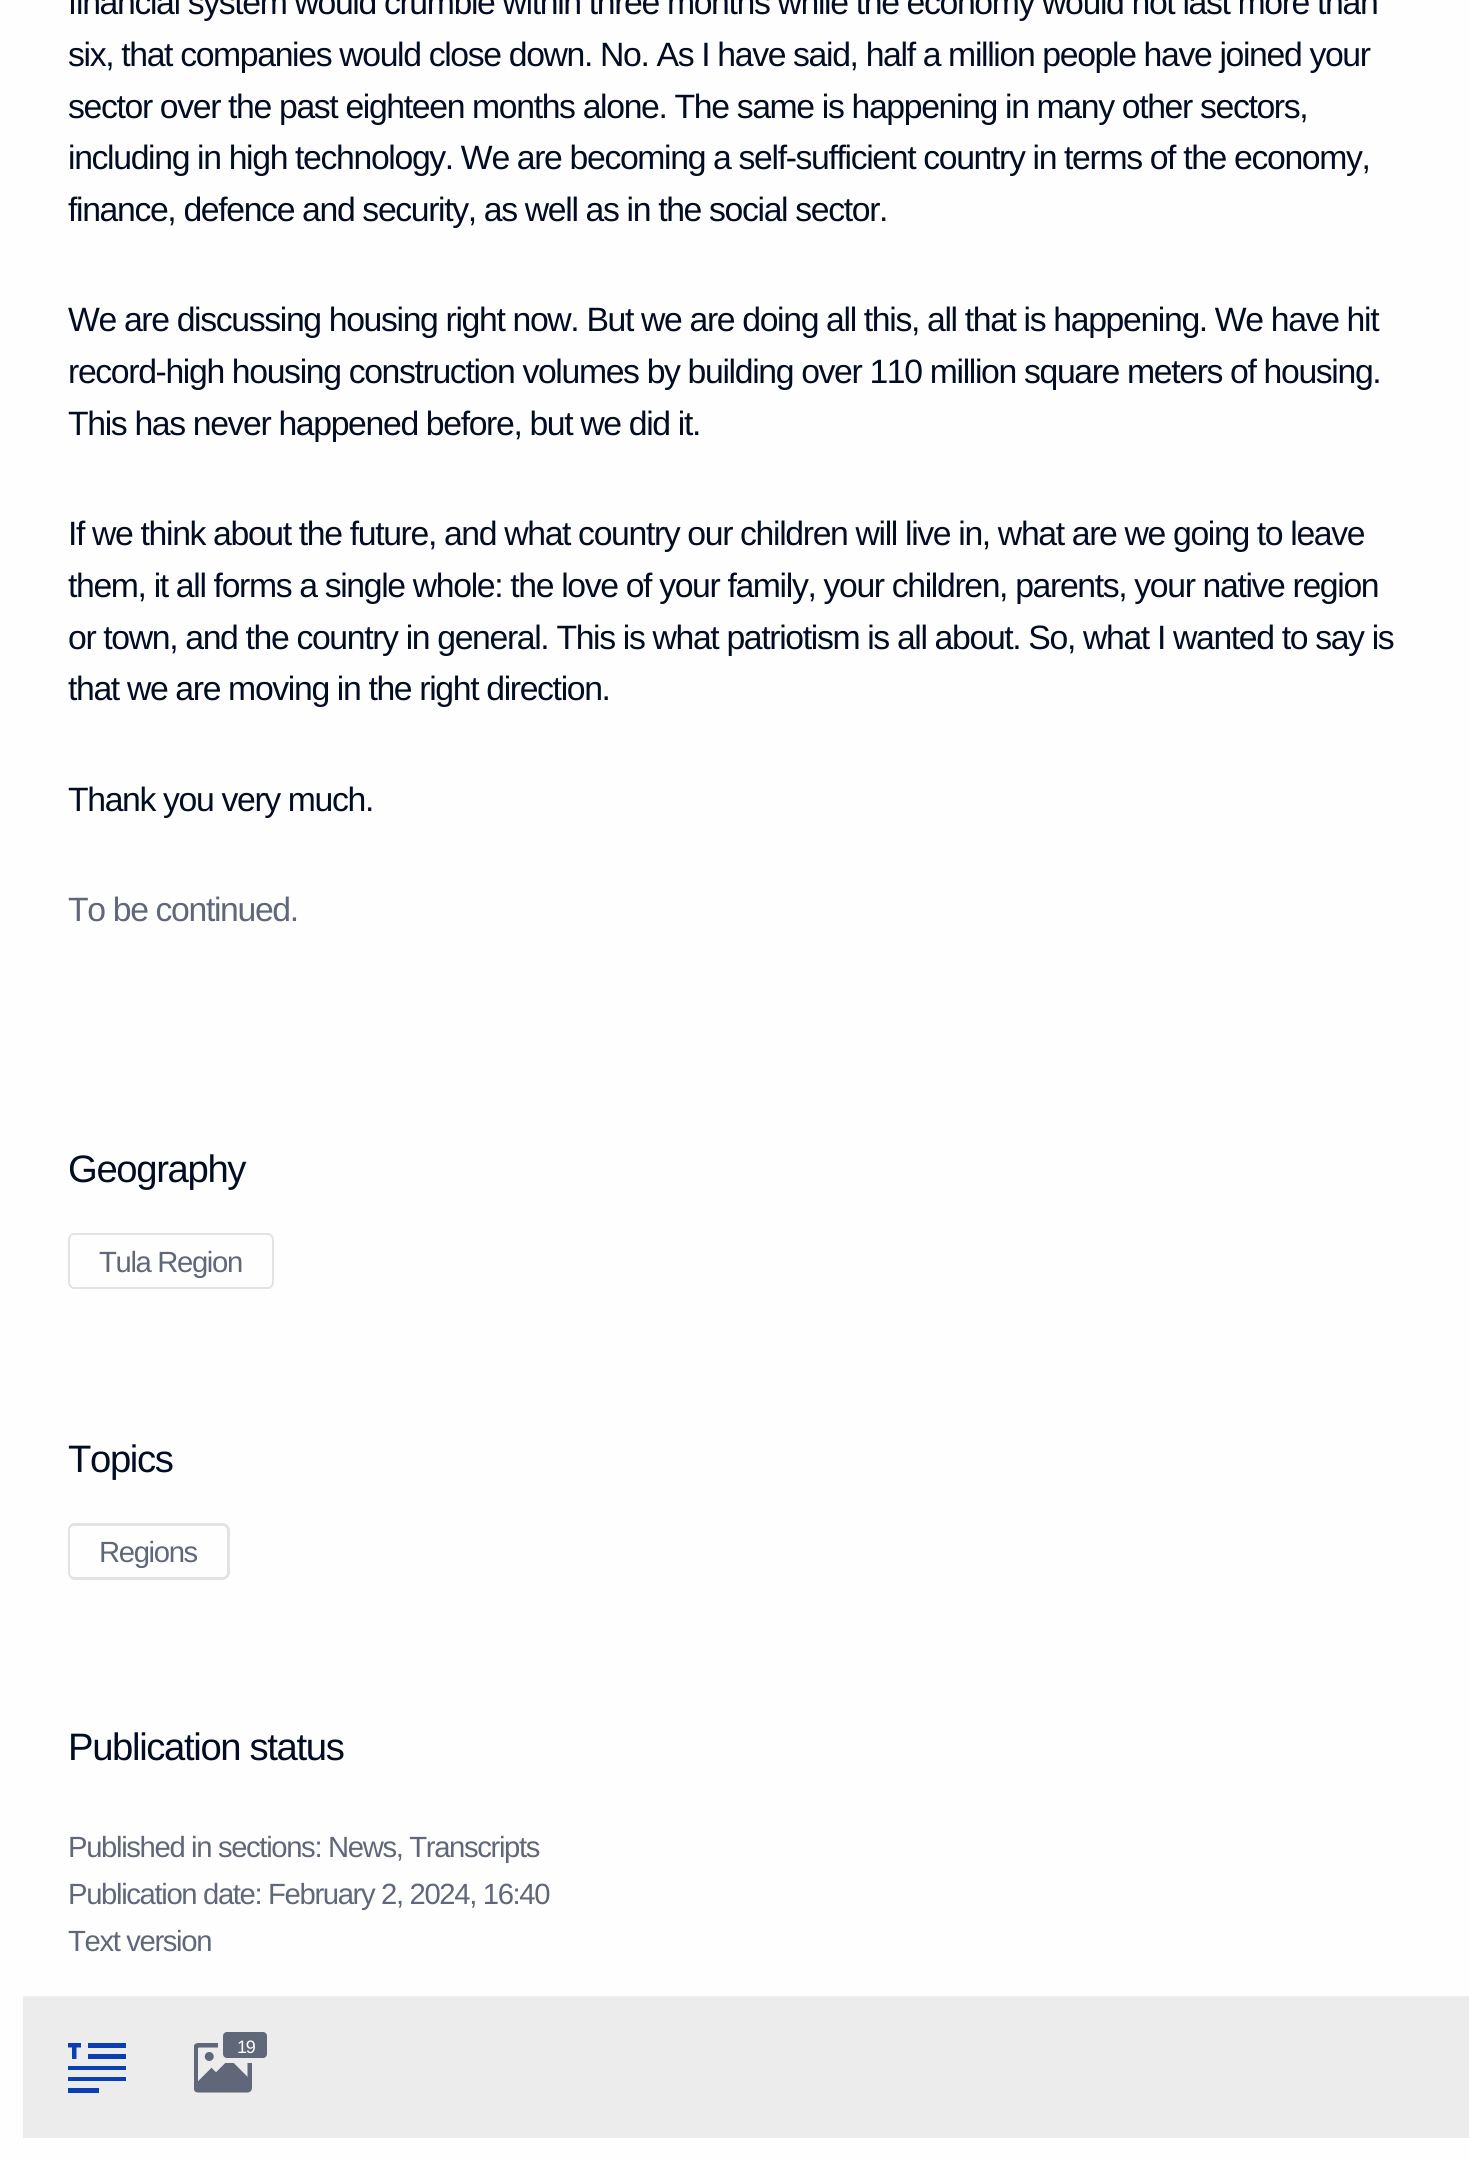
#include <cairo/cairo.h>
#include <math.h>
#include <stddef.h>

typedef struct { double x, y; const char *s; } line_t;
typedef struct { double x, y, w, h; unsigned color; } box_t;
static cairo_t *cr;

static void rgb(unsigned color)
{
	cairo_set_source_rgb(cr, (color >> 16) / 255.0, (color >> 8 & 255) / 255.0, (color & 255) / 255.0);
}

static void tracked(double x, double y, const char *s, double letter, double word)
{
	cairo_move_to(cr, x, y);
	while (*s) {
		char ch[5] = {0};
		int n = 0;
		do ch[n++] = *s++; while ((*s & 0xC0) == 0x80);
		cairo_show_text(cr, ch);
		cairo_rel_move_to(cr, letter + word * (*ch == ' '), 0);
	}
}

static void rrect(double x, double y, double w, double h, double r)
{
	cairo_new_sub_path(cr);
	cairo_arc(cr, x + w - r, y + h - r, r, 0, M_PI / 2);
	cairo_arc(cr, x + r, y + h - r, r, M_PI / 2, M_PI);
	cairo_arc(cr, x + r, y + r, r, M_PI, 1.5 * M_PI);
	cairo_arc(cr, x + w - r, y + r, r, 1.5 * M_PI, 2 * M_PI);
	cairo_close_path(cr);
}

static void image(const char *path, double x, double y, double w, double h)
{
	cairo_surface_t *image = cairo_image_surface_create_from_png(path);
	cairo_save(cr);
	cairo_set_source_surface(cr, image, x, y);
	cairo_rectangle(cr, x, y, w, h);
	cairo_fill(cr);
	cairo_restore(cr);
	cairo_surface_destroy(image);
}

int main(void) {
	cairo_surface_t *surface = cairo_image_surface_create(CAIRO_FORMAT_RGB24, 1469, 2161);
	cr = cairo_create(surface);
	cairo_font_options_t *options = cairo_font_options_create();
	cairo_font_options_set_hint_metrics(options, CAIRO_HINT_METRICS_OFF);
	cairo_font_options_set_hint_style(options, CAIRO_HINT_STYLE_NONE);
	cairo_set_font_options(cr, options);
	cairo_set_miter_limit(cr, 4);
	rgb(0xfefefe);
	cairo_paint(cr);
	rgb(0xe2e3e4);
	cairo_set_fill_rule(cr, CAIRO_FILL_RULE_EVEN_ODD);
	cairo_new_path(cr);
	cairo_move_to(cr, 74, 1233);
	cairo_line_to(cr, 99, 1233);
	cairo_line_to(cr, 99, 1289);
	cairo_line_to(cr, 74, 1289);
	cairo_curve_to(cr, 71, 1289, 68, 1286, 68, 1282);
	cairo_line_to(cr, 68, 1240);
	cairo_curve_to(cr, 68, 1236, 71, 1233, 74, 1233);
	cairo_close_path(cr);
	cairo_move_to(cr, 74, 1235);
	cairo_line_to(cr, 99, 1235);
	cairo_line_to(cr, 99, 1287);
	cairo_line_to(cr, 74, 1287);
	cairo_curve_to(cr, 72, 1287, 70, 1285, 70, 1282);
	cairo_line_to(cr, 70, 1240);
	cairo_curve_to(cr, 70, 1237, 72, 1235, 74, 1235);
	cairo_close_path(cr);
	cairo_fill(cr);
	cairo_new_path(cr);
	cairo_move_to(cr, 99, 1233);
	cairo_line_to(cr, 268, 1233);
	cairo_curve_to(cr, 271, 1233, 274, 1236, 274, 1240);
	cairo_line_to(cr, 274, 1282);
	cairo_curve_to(cr, 274, 1286, 271, 1289, 268, 1289);
	cairo_line_to(cr, 99, 1289);
	cairo_close_path(cr);
	cairo_move_to(cr, 99, 1235);
	cairo_line_to(cr, 268, 1235);
	cairo_curve_to(cr, 270, 1235, 272, 1237, 272, 1240);
	cairo_line_to(cr, 272, 1282);
	cairo_curve_to(cr, 272, 1285, 270, 1287, 268, 1287);
	cairo_line_to(cr, 99, 1287);
	cairo_close_path(cr);
	cairo_fill(cr);
	cairo_new_path(cr);
	cairo_move_to(cr, 74, 1523);
	cairo_line_to(cr, 99, 1523);
	cairo_line_to(cr, 99, 1580);
	cairo_line_to(cr, 74, 1580);
	cairo_curve_to(cr, 71, 1580, 68, 1576, 68, 1573);
	cairo_line_to(cr, 68, 1530);
	cairo_curve_to(cr, 68, 1526, 71, 1523, 74, 1523);
	cairo_close_path(cr);
	cairo_move_to(cr, 74, 1526);
	cairo_line_to(cr, 99, 1526);
	cairo_line_to(cr, 99, 1577);
	cairo_line_to(cr, 74, 1577);
	cairo_curve_to(cr, 72, 1577, 70, 1575, 70, 1573);
	cairo_line_to(cr, 70, 1530);
	cairo_curve_to(cr, 70, 1528, 72, 1526, 74, 1526);
	cairo_close_path(cr);
	cairo_fill(cr);
	cairo_new_path(cr);
	cairo_move_to(cr, 99, 1523);
	cairo_line_to(cr, 223, 1523);
	cairo_curve_to(cr, 226, 1523, 230, 1526, 230, 1530);
	cairo_line_to(cr, 230, 1573);
	cairo_curve_to(cr, 230, 1576, 226, 1580, 223, 1580);
	cairo_line_to(cr, 99, 1580);
	cairo_close_path(cr);
	cairo_move_to(cr, 99, 1526);
	cairo_line_to(cr, 223, 1526);
	cairo_curve_to(cr, 225, 1526, 227, 1528, 227, 1530);
	cairo_line_to(cr, 227, 1573);
	cairo_curve_to(cr, 227, 1575, 225, 1577, 223, 1577);
	cairo_line_to(cr, 99, 1577);
	cairo_close_path(cr);
	cairo_fill(cr);
	rgb(0xececec);
	cairo_rectangle(cr, 23, 1998, 1446, 140);
	cairo_fill(cr);
	rgb(0xeeeeee);
	cairo_rectangle(cr, 23, 1996, 1446, 2);
	cairo_fill(cr);
	cairo_save(cr);
	cairo_set_fill_rule(cr, CAIRO_FILL_RULE_WINDING);
	cairo_rectangle(cr, 68, 2043, 58, 50);
	cairo_clip(cr);
	rgb(0x0a3fb4);
	cairo_new_path(cr);
	cairo_move_to(cr, 67.5, 2047.5);
	cairo_line_to(cr, 67.5, 2043);
	cairo_line_to(cr, 81, 2043);
	cairo_line_to(cr, 81, 2047.5);
	cairo_line_to(cr, 76.5, 2047.5);
	cairo_line_to(cr, 76.5, 2059);
	cairo_line_to(cr, 72, 2059);
	cairo_line_to(cr, 72, 2047.5);
	cairo_close_path(cr);
	cairo_fill(cr);
	cairo_restore(cr);
	{
		static const box_t items[] = {
			{88, 2043, 38, 5, 0x0a3fb4},
			{88, 2054, 38, 5, 0x0a3fb4},
			{68, 2066, 58, 4, 0x0a3fb4},
			{68, 2077, 58, 4, 0x0a3fb4},
			{68, 2088, 31, 5, 0x0a3fb4},
		};
		for (size_t i = 0; i < sizeof items / sizeof *items; i++) {
			rgb(items[i].color);
			cairo_rectangle(cr, items[i].x, items[i].y, items[i].w, items[i].h);
			cairo_fill(cr);
		}
	}
	image("img/1.png", 194, 2043, 58, 50);
	rgb(0x606778);
	rrect(220.5, 2029.5, 49, 31, 6.5);
	cairo_fill_preserve(cr);
	rgb(0xececec);
	cairo_set_line_width(cr, 5);
	cairo_stroke(cr);
	cairo_select_font_face(cr, "Liberation Sans", CAIRO_FONT_SLANT_NORMAL, CAIRO_FONT_WEIGHT_NORMAL);
	cairo_set_font_size(cr, 33.75);
	rgb(0x020c22);
	{
		static const line_t items[] = {
			{68, 14, "financial system would crumble within three months while the economy would not last more than"},
			{68, 66, "six, that companies would close down. No. As I have said, half a million people have joined your"},
			{68, 118, "sector over the past eighteen months alone. The same is happening in many other sectors,"},
			{68, 169, "including in high technology. We are becoming a self-sufficient country in terms of the economy,"},
			{68, 221, "finance, defence and security, as well as in the social sector."},
			{68, 331, "We are discussing housing right now. But we are doing all this, all that is happening. We have hit"},
			{68, 383, "record-high housing construction volumes by building over 110 million square meters of housing."},
			{68, 435, "This has never happened before, but we did it."},
			{68, 545, "If we think about the future, and what country our children will live in, what are we going to leave"},
			{68, 597, "them, it all forms a single whole: the love of your family, your children, parents, your native region"},
			{68, 649, "or town, and the country in general. This is what patriotism is all about. So, what I wanted to say is"},
			{68, 700, "that we are moving in the right direction."},
			{68, 811, "Thank you very much."},
		};
		for (size_t i = 0; i < sizeof items / sizeof *items; i++) {
			tracked(items[i].x, items[i].y, items[i].s, -1.35, 0);
		}
	}
	rgb(0x606778);
	tracked(68, 921, "To be continued.", -1.35, 0);
	cairo_set_font_size(cr, 38.25);
	rgb(0x020c22);
	tracked(68, 1182, "Geography", -1.35, 0);
	cairo_set_font_size(cr, 29.25);
	rgb(0x606778);
	tracked(99, 1272, "Tula Region", -1.35, 0);
	cairo_set_font_size(cr, 38.25);
	rgb(0x020c22);
	tracked(68, 1472, "Topics", -1.35, 0);
	cairo_set_font_size(cr, 29.25);
	rgb(0x606778);
	tracked(99, 1562, "Regions", -1.35, 0);
	cairo_set_font_size(cr, 38.25);
	rgb(0x020c22);
	tracked(68, 1760, "Publication status", -1.35, 0);
	cairo_set_font_size(cr, 29.25);
	rgb(0x606778);
	{
		static const line_t items[] = {
			{68, 1857, "Published in sections: News, Transcripts"},
			{68, 1904, "Publication date: February 2, 2024, 16:40"},
			{68, 1951, "Text version"},
		};
		for (size_t i = 0; i < sizeof items / sizeof *items; i++) {
			tracked(items[i].x, items[i].y, items[i].s, -1.35, 0);
		}
	}
	cairo_set_font_size(cr, 18);
	rgb(0xfefefe);
	tracked(237, 2053, "19", -1.35, 0);
	cairo_surface_write_to_png(surface, "page.png");
	cairo_font_options_destroy(options);
	cairo_destroy(cr);
	cairo_surface_destroy(surface);
	return 0;
}
